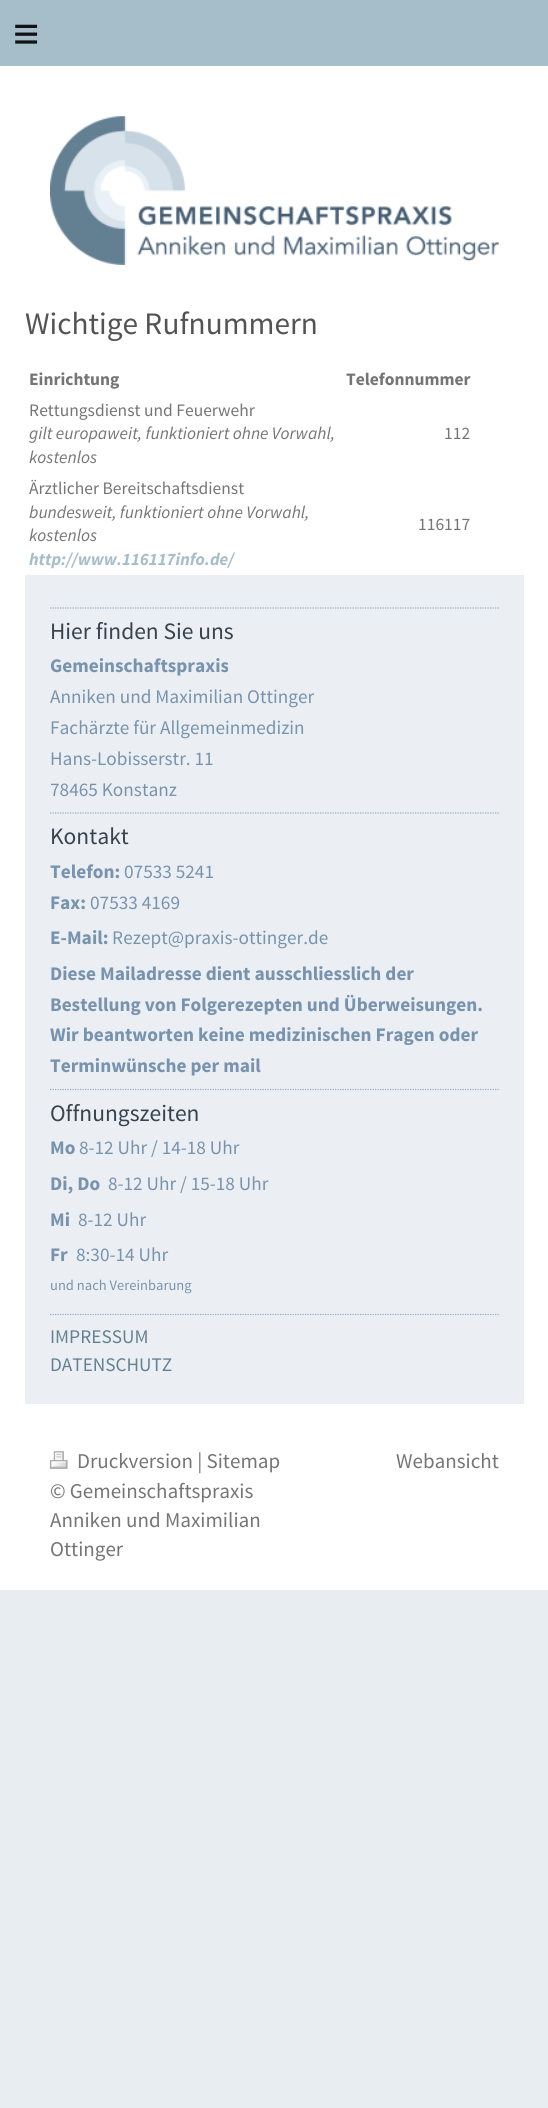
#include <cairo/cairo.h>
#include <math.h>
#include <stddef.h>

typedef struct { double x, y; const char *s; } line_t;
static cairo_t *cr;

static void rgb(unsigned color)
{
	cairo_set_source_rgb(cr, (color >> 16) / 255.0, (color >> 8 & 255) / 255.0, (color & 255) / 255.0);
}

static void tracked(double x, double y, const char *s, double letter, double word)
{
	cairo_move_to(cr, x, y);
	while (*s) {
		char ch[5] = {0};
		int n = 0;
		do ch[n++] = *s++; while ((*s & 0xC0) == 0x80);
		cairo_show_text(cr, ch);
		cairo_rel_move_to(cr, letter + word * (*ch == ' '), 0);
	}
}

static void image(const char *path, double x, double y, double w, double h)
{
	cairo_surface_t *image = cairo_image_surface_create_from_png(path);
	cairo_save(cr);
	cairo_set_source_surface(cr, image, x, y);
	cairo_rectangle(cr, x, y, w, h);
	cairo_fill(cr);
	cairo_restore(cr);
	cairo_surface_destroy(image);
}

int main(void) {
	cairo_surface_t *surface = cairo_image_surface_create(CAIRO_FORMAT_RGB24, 548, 2108);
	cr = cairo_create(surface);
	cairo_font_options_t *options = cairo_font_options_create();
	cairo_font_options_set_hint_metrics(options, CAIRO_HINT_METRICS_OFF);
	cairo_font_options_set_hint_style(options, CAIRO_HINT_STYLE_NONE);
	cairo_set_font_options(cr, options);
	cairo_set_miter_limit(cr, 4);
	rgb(0xe7edf1);
	cairo_paint(cr);
	rgb(0xa5beca);
	cairo_rectangle(cr, 0, 0, 548, 66);
	cairo_fill(cr);
	rgb(0xffffff);
	cairo_rectangle(cr, 0, 66, 548, 1524);
	cairo_fill(cr);
	image("img/1.png", 50, 116, 449, 149);
	rgb(0xebeff3);
	cairo_rectangle(cr, 25, 575, 499, 829);
	cairo_fill(cr);
	cairo_new_path(cr);
	cairo_move_to(cr, 50, 608);
	cairo_line_to(cr, 499, 608);
	rgb(0x95aabf);
	cairo_set_line_width(cr, 1.2);
	cairo_set_dash(cr, (double[]){1.25, 1.25}, 2, 0);
	cairo_stroke(cr);
	cairo_new_path(cr);
	cairo_move_to(cr, 50, 813);
	cairo_line_to(cr, 499, 813);
	cairo_stroke(cr);
	cairo_new_path(cr);
	cairo_move_to(cr, 50, 1089.5);
	cairo_line_to(cr, 499, 1089.5);
	cairo_stroke(cr);
	cairo_new_path(cr);
	cairo_move_to(cr, 50, 1314.5);
	cairo_line_to(cr, 499, 1314.5);
	cairo_stroke(cr);
	image("img/2.png", 50, 1451, 18, 18);
	cairo_select_font_face(cr, "Liberation Sans", CAIRO_FONT_SLANT_NORMAL, CAIRO_FONT_WEIGHT_NORMAL);
	cairo_set_font_size(cr, 45);
	rgb(0x111314);
	tracked(13, 49, "≡", 13, 0);
	cairo_select_font_face(cr, "Source Sans Pro", CAIRO_FONT_SLANT_NORMAL, CAIRO_FONT_WEIGHT_NORMAL);
	cairo_set_font_size(cr, 31.25);
	rgb(0x535353);
	cairo_move_to(cr, 25, 334);
	cairo_show_text(cr, "Wichtige Rufnummern");
	cairo_select_font_face(cr, "Source Sans Pro", CAIRO_FONT_SLANT_NORMAL, CAIRO_FONT_WEIGHT_BOLD);
	cairo_set_font_size(cr, 17.5);
	rgb(0x757575);
	cairo_move_to(cr, 29, 385);
	cairo_show_text(cr, "Einrichtung");
	cairo_move_to(cr, 346, 385);
	cairo_show_text(cr, "Telefonnummer");
	cairo_select_font_face(cr, "Source Sans Pro", CAIRO_FONT_SLANT_NORMAL, CAIRO_FONT_WEIGHT_NORMAL);
	cairo_move_to(cr, 29, 416);
	cairo_show_text(cr, "Rettungsdienst und Feuerwehr");
	cairo_select_font_face(cr, "Source Sans Pro", CAIRO_FONT_SLANT_ITALIC, CAIRO_FONT_WEIGHT_NORMAL);
	cairo_move_to(cr, 29, 439);
	cairo_show_text(cr, "gilt europaweit, funktioniert ohne Vorwahl,");
	cairo_move_to(cr, 29, 463);
	cairo_show_text(cr, "kostenlos");
	cairo_select_font_face(cr, "Source Sans Pro", CAIRO_FONT_SLANT_NORMAL, CAIRO_FONT_WEIGHT_NORMAL);
	cairo_move_to(cr, 444, 439);
	cairo_show_text(cr, "112");
	cairo_move_to(cr, 29, 494);
	cairo_show_text(cr, "Ärztlicher Bereitschaftsdienst");
	cairo_select_font_face(cr, "Source Sans Pro", CAIRO_FONT_SLANT_ITALIC, CAIRO_FONT_WEIGHT_NORMAL);
	cairo_move_to(cr, 29, 518);
	cairo_show_text(cr, "bundesweit, funktioniert ohne Vorwahl,");
	cairo_move_to(cr, 29, 541);
	cairo_show_text(cr, "kostenlos");
	cairo_select_font_face(cr, "Source Sans Pro", CAIRO_FONT_SLANT_ITALIC, CAIRO_FONT_WEIGHT_BOLD);
	rgb(0xa5beca);
	cairo_move_to(cr, 29, 565);
	cairo_show_text(cr, "http://www.116117info.de/");
	cairo_select_font_face(cr, "Source Sans Pro", CAIRO_FONT_SLANT_NORMAL, CAIRO_FONT_WEIGHT_NORMAL);
	rgb(0x757575);
	cairo_move_to(cr, 418, 530);
	cairo_show_text(cr, "116117");
	cairo_set_font_size(cr, 23.5);
	rgb(0x38434e);
	cairo_move_to(cr, 50, 639);
	cairo_show_text(cr, "Hier finden Sie uns");
	cairo_select_font_face(cr, "Source Sans Pro", CAIRO_FONT_SLANT_NORMAL, CAIRO_FONT_WEIGHT_BOLD);
	cairo_set_font_size(cr, 19.25);
	rgb(0x7893ae);
	cairo_move_to(cr, 50, 672);
	cairo_show_text(cr, "Gemeinschaftspraxis");
	cairo_select_font_face(cr, "Source Sans Pro", CAIRO_FONT_SLANT_NORMAL, CAIRO_FONT_WEIGHT_NORMAL);
	{
		static const line_t items[] = {
			{50, 703, "Anniken und Maximilian Ottinger"},
			{50, 734, "Fachärzte für Allgemeinmedizin"},
			{50, 765, "Hans-Lobisserstr. 11"},
			{50, 796, "78465 Konstanz"},
		};
		for (size_t i = 0; i < sizeof items / sizeof *items; i++) {
			cairo_move_to(cr, items[i].x, items[i].y);
			cairo_show_text(cr, items[i].s);
		}
	}
	cairo_set_font_size(cr, 23.5);
	rgb(0x38434e);
	cairo_move_to(cr, 50, 844);
	cairo_show_text(cr, "Kontakt");
	cairo_select_font_face(cr, "Source Sans Pro", CAIRO_FONT_SLANT_NORMAL, CAIRO_FONT_WEIGHT_BOLD);
	cairo_set_font_size(cr, 19.25);
	rgb(0x7893ae);
	cairo_move_to(cr, 50, 878);
	cairo_show_text(cr, "Telefon:");
	cairo_select_font_face(cr, "Source Sans Pro", CAIRO_FONT_SLANT_NORMAL, CAIRO_FONT_WEIGHT_NORMAL);
	cairo_move_to(cr, 124, 878);
	cairo_show_text(cr, "07533 5241");
	cairo_select_font_face(cr, "Source Sans Pro", CAIRO_FONT_SLANT_NORMAL, CAIRO_FONT_WEIGHT_BOLD);
	cairo_move_to(cr, 50, 909);
	cairo_show_text(cr, "Fax:");
	cairo_select_font_face(cr, "Source Sans Pro", CAIRO_FONT_SLANT_NORMAL, CAIRO_FONT_WEIGHT_NORMAL);
	cairo_move_to(cr, 90, 909);
	cairo_show_text(cr, "07533 4169");
	cairo_select_font_face(cr, "Source Sans Pro", CAIRO_FONT_SLANT_NORMAL, CAIRO_FONT_WEIGHT_BOLD);
	cairo_move_to(cr, 50, 944);
	cairo_show_text(cr, "E-Mail:");
	cairo_select_font_face(cr, "Source Sans Pro", CAIRO_FONT_SLANT_NORMAL, CAIRO_FONT_WEIGHT_NORMAL);
	cairo_move_to(cr, 112, 944);
	cairo_show_text(cr, "Rezept@praxis-ottinger.de");
	cairo_select_font_face(cr, "Source Sans Pro", CAIRO_FONT_SLANT_NORMAL, CAIRO_FONT_WEIGHT_BOLD);
	{
		static const line_t items[] = {
			{50, 980, "Diese Mailadresse dient ausschliesslich der"},
			{50, 1011, "Bestellung von Folgerezepten und Überweisungen."},
			{50, 1041, "Wir beantworten keine medizinischen Fragen oder"},
			{50, 1072, "Terminwünsche per mail"},
		};
		for (size_t i = 0; i < sizeof items / sizeof *items; i++) {
			cairo_move_to(cr, items[i].x, items[i].y);
			cairo_show_text(cr, items[i].s);
		}
	}
	cairo_select_font_face(cr, "Source Sans Pro", CAIRO_FONT_SLANT_NORMAL, CAIRO_FONT_WEIGHT_NORMAL);
	cairo_set_font_size(cr, 23.5);
	rgb(0x38434e);
	cairo_move_to(cr, 50, 1121);
	cairo_show_text(cr, "Offnungszeiten");
	cairo_select_font_face(cr, "Source Sans Pro", CAIRO_FONT_SLANT_NORMAL, CAIRO_FONT_WEIGHT_BOLD);
	cairo_set_font_size(cr, 19.25);
	rgb(0x7893ae);
	cairo_move_to(cr, 50, 1154);
	cairo_show_text(cr, "Mo");
	cairo_select_font_face(cr, "Source Sans Pro", CAIRO_FONT_SLANT_NORMAL, CAIRO_FONT_WEIGHT_NORMAL);
	cairo_move_to(cr, 79, 1154);
	cairo_show_text(cr, "8-12 Uhr / 14-18 Uhr");
	cairo_select_font_face(cr, "Source Sans Pro", CAIRO_FONT_SLANT_NORMAL, CAIRO_FONT_WEIGHT_BOLD);
	cairo_move_to(cr, 50, 1190);
	cairo_show_text(cr, "Di, Do");
	cairo_select_font_face(cr, "Source Sans Pro", CAIRO_FONT_SLANT_NORMAL, CAIRO_FONT_WEIGHT_NORMAL);
	cairo_move_to(cr, 108, 1190);
	cairo_show_text(cr, "8-12 Uhr / 15-18 Uhr");
	cairo_select_font_face(cr, "Source Sans Pro", CAIRO_FONT_SLANT_NORMAL, CAIRO_FONT_WEIGHT_BOLD);
	cairo_move_to(cr, 50, 1226);
	cairo_show_text(cr, "Mi");
	cairo_select_font_face(cr, "Source Sans Pro", CAIRO_FONT_SLANT_NORMAL, CAIRO_FONT_WEIGHT_NORMAL);
	cairo_move_to(cr, 78, 1226);
	cairo_show_text(cr, "8-12 Uhr");
	cairo_select_font_face(cr, "Source Sans Pro", CAIRO_FONT_SLANT_NORMAL, CAIRO_FONT_WEIGHT_BOLD);
	cairo_move_to(cr, 50, 1261);
	cairo_show_text(cr, "Fr");
	cairo_select_font_face(cr, "Source Sans Pro", CAIRO_FONT_SLANT_NORMAL, CAIRO_FONT_WEIGHT_NORMAL);
	cairo_move_to(cr, 76, 1261);
	cairo_show_text(cr, "8:30-14 Uhr");
	cairo_set_font_size(cr, 14.5);
	cairo_move_to(cr, 50, 1290);
	cairo_show_text(cr, "und nach Vereinbarung");
	cairo_set_font_size(cr, 19.25);
	rgb(0x638093);
	cairo_move_to(cr, 50, 1343);
	cairo_show_text(cr, "IMPRESSUM");
	cairo_move_to(cr, 50, 1371);
	cairo_show_text(cr, "DATENSCHUTZ");
	cairo_set_font_size(cr, 21);
	rgb(0x757575);
	{
		static const line_t items[] = {
			{77, 1468, "Druckversion | Sitemap"},
			{50, 1498, "© Gemeinschaftspraxis"},
			{50, 1527, "Anniken und Maximilian"},
			{50, 1556, "Ottinger"},
			{396, 1468, "Webansicht"},
		};
		for (size_t i = 0; i < sizeof items / sizeof *items; i++) {
			cairo_move_to(cr, items[i].x, items[i].y);
			cairo_show_text(cr, items[i].s);
		}
	}
	cairo_surface_write_to_png(surface, "page.png");
	cairo_font_options_destroy(options);
	cairo_destroy(cr);
	cairo_surface_destroy(surface);
	return 0;
}
